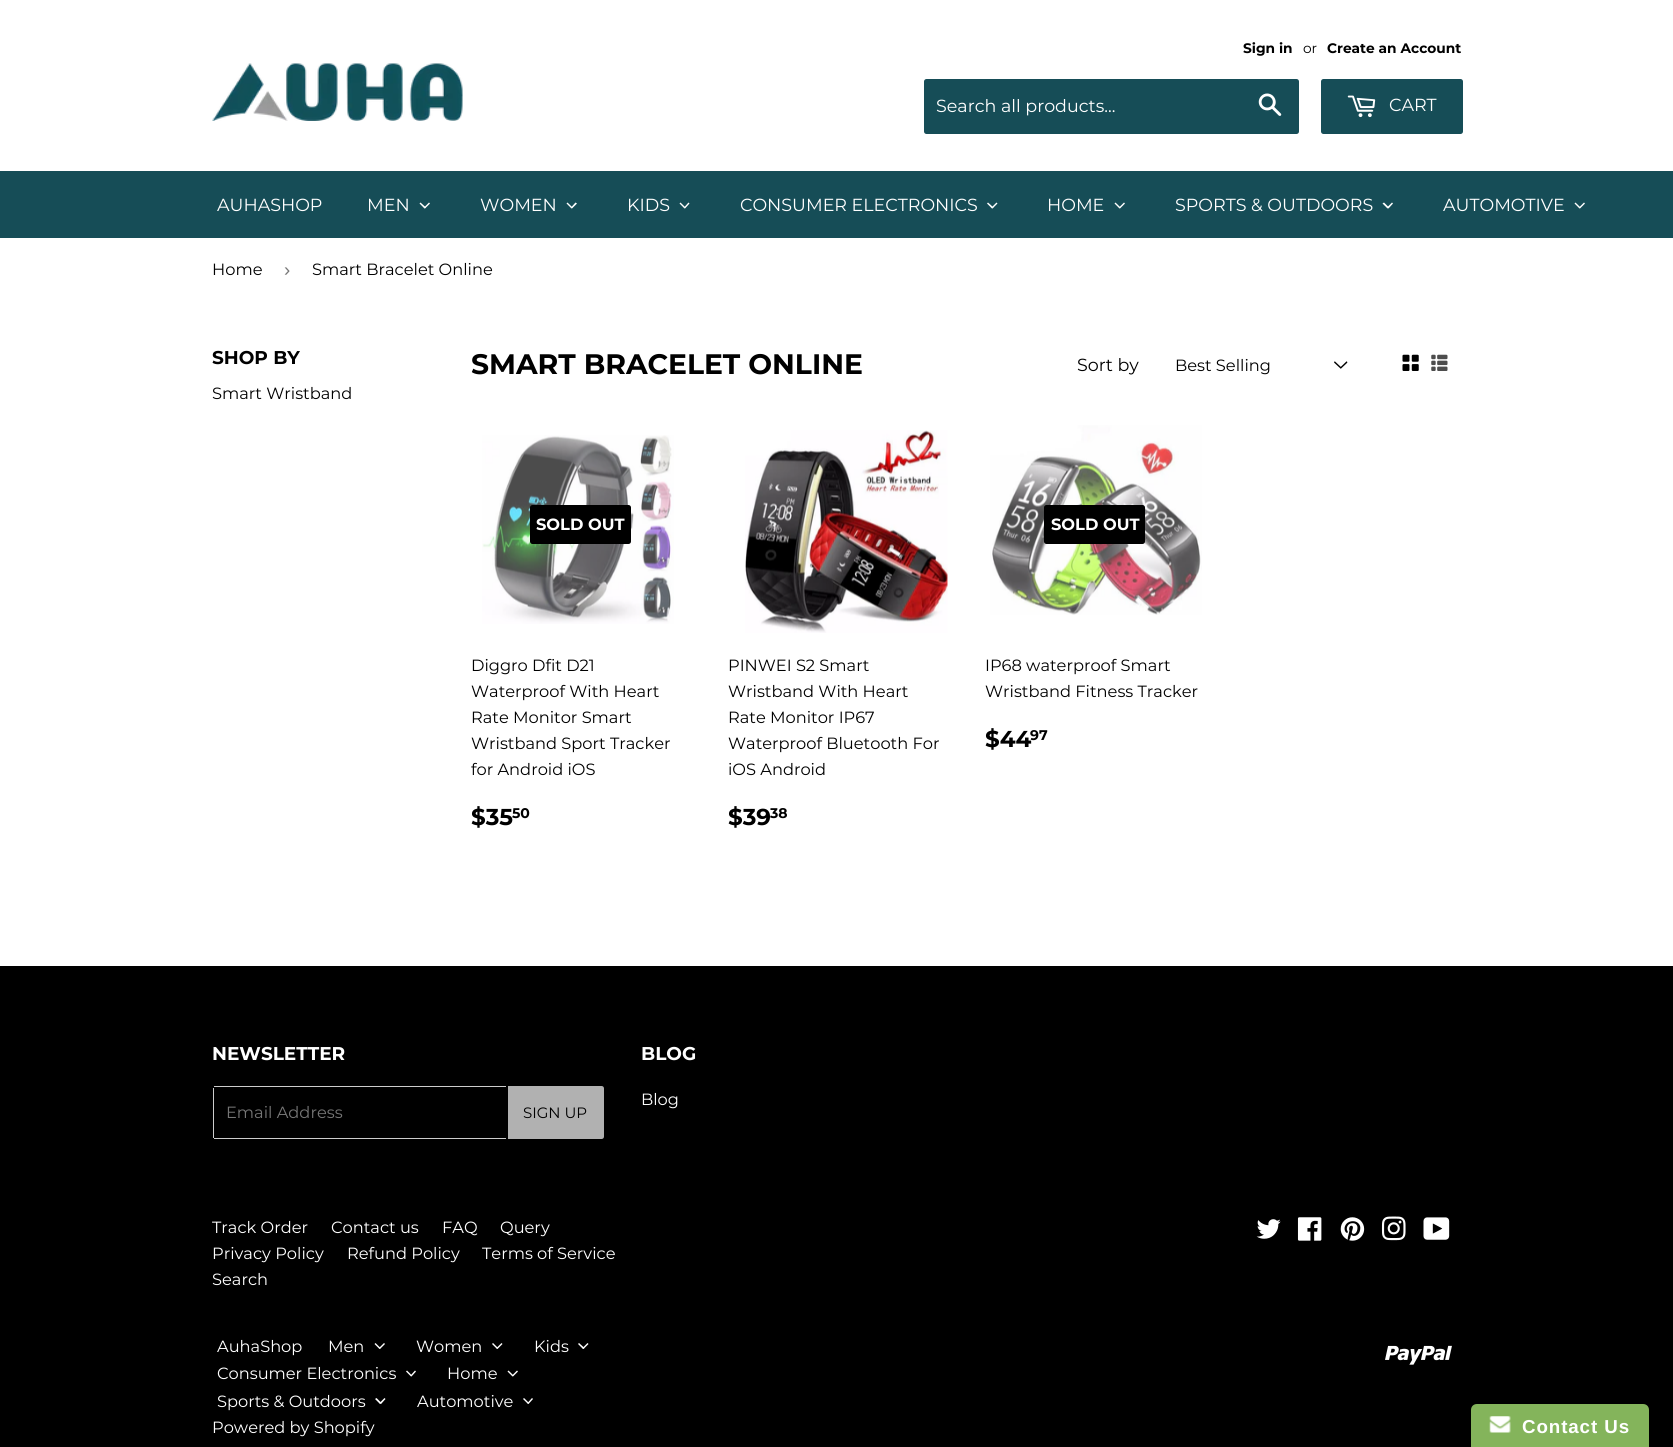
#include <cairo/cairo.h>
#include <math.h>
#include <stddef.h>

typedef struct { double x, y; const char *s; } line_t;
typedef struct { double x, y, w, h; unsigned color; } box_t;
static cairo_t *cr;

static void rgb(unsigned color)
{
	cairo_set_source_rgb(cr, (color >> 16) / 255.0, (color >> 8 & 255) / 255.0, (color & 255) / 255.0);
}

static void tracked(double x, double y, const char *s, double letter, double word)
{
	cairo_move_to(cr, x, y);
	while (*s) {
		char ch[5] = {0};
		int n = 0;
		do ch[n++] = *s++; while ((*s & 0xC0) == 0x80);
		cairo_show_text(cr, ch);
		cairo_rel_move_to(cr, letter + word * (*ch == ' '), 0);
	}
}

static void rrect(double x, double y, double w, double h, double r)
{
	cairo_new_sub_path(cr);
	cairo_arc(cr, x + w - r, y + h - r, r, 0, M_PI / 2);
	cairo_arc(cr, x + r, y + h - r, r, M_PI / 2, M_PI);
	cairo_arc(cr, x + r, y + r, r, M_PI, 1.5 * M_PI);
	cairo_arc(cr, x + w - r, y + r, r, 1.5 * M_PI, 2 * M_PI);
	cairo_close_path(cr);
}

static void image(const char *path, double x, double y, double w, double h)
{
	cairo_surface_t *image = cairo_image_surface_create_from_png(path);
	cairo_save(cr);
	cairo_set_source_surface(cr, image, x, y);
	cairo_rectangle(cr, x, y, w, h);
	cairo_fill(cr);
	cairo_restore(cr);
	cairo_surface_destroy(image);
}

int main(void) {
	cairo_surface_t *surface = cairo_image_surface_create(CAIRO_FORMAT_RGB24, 1673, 1447);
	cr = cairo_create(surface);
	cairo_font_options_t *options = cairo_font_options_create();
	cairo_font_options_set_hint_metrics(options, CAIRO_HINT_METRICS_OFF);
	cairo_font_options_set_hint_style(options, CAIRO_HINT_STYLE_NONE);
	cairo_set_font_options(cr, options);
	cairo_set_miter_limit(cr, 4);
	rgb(0xffffff);
	cairo_paint(cr);
	image("img/1.png", 212, 63, 251, 58);
	rgb(0x164d57);
	rrect(924, 79, 375, 55, 2.5);
	cairo_fill(cr);
	image("img/2.png", 1258, 93, 24, 23);
	rrect(1321, 79, 142, 55, 2.5);
	cairo_fill(cr);
	image("img/3.png", 1347, 95, 29, 23);
	cairo_rectangle(cr, 0, 171, 1673, 67);
	cairo_fill(cr);
	rgb(0xffffff);
	cairo_new_path(cr);
	cairo_move_to(cr, 429, 202.5);
	cairo_line_to(cr, 430, 203.5);
	cairo_line_to(cr, 425, 208.5);
	cairo_line_to(cr, 424, 207.5);
	cairo_close_path(cr);
	cairo_fill(cr);
	cairo_new_path(cr);
	cairo_move_to(cr, 420.5, 202.5);
	cairo_line_to(cr, 426, 207.5);
	cairo_line_to(cr, 424.5, 208.5);
	cairo_line_to(cr, 419.5, 203.5);
	cairo_close_path(cr);
	cairo_fill(cr);
	cairo_new_path(cr);
	cairo_move_to(cr, 575.5, 202.5);
	cairo_line_to(cr, 577, 203.5);
	cairo_line_to(cr, 572, 208.5);
	cairo_line_to(cr, 571, 207.5);
	cairo_close_path(cr);
	cairo_fill(cr);
	cairo_new_path(cr);
	cairo_move_to(cr, 567.5, 202.5);
	cairo_line_to(cr, 572.5, 207.5);
	cairo_line_to(cr, 571.5, 208.5);
	cairo_line_to(cr, 566.5, 203.5);
	cairo_close_path(cr);
	cairo_fill(cr);
	cairo_new_path(cr);
	cairo_move_to(cr, 688.5, 202.5);
	cairo_line_to(cr, 689.5, 203.5);
	cairo_line_to(cr, 685, 208.5);
	cairo_line_to(cr, 684, 207.5);
	cairo_close_path(cr);
	cairo_fill(cr);
	cairo_new_path(cr);
	cairo_move_to(cr, 680.5, 202.5);
	cairo_line_to(cr, 685.5, 207.5);
	cairo_line_to(cr, 684.5, 208.5);
	cairo_line_to(cr, 679.5, 203.5);
	cairo_close_path(cr);
	cairo_fill(cr);
	cairo_new_path(cr);
	cairo_move_to(cr, 996.5, 202.5);
	cairo_line_to(cr, 997.5, 203.5);
	cairo_line_to(cr, 992.5, 208.5);
	cairo_line_to(cr, 991.5, 207.5);
	cairo_close_path(cr);
	cairo_fill(cr);
	cairo_new_path(cr);
	cairo_move_to(cr, 988, 202.5);
	cairo_line_to(cr, 993.5, 207.5);
	cairo_line_to(cr, 992, 208.5);
	cairo_line_to(cr, 987, 203.5);
	cairo_close_path(cr);
	cairo_fill(cr);
	cairo_new_path(cr);
	cairo_move_to(cr, 1124, 202.5);
	cairo_line_to(cr, 1125, 203.5);
	cairo_line_to(cr, 1120, 208.5);
	cairo_line_to(cr, 1119, 207.5);
	cairo_close_path(cr);
	cairo_fill(cr);
	cairo_new_path(cr);
	cairo_move_to(cr, 1115.5, 202.5);
	cairo_line_to(cr, 1120.5, 207.5);
	cairo_line_to(cr, 1119.5, 208.5);
	cairo_line_to(cr, 1114.5, 203.5);
	cairo_close_path(cr);
	cairo_fill(cr);
	cairo_new_path(cr);
	cairo_move_to(cr, 1392, 202.5);
	cairo_line_to(cr, 1393, 203.5);
	cairo_line_to(cr, 1388.5, 208.5);
	cairo_line_to(cr, 1387, 207.5);
	cairo_close_path(cr);
	cairo_fill(cr);
	cairo_new_path(cr);
	cairo_move_to(cr, 1384, 202.5);
	cairo_line_to(cr, 1389, 207.5);
	cairo_line_to(cr, 1387.5, 208.5);
	cairo_line_to(cr, 1382.5, 203.5);
	cairo_close_path(cr);
	cairo_fill(cr);
	cairo_new_path(cr);
	cairo_move_to(cr, 1584, 202.5);
	cairo_line_to(cr, 1585, 203.5);
	cairo_line_to(cr, 1580, 208.5);
	cairo_line_to(cr, 1579, 207.5);
	cairo_close_path(cr);
	cairo_fill(cr);
	cairo_new_path(cr);
	cairo_move_to(cr, 1575.5, 202.5);
	cairo_line_to(cr, 1580.5, 207.5);
	cairo_line_to(cr, 1579.5, 208.5);
	cairo_line_to(cr, 1574.5, 203.5);
	cairo_close_path(cr);
	cairo_fill(cr);
	image("img/4.png", 1334, 361, 14, 8);
	image("img/5.png", 1402, 354, 17, 17);
	image("img/6.png", 1431, 354, 17, 17);
	image("img/7.png", 482, 435, 192, 189);
	rgb(0x000000);
	rrect(530, 505, 101, 39, 2.5);
	cairo_fill(cr);
	image("img/8.png", 745, 430, 203, 203);
	image("img/9.png", 990, 425, 212, 190);
	rrect(1044, 505, 101, 39, 2.5);
	cairo_fill(cr);
	{
		static const box_t items[] = {
			{0, 966, 1673, 481, 0x000000},
			{214, 1086, 292, 1, 0xcccccc},
			{214, 1138, 292, 1, 0xcccccc},
			{213, 1088, 1, 50, 0xcccccc},
		};
		for (size_t i = 0; i < sizeof items / sizeof *items; i++) {
			rgb(items[i].color);
			cairo_rectangle(cr, items[i].x, items[i].y, items[i].w, items[i].h);
			cairo_fill(cr);
		}
	}
	rgb(0xb1b1b1);
	cairo_new_path(cr);
	cairo_move_to(cr, 508, 1086);
	cairo_line_to(cr, 601.5, 1086);
	cairo_curve_to(cr, 603, 1086, 604, 1087, 604, 1088.5);
	cairo_line_to(cr, 604, 1136.5);
	cairo_curve_to(cr, 604, 1138, 603, 1139, 601.5, 1139);
	cairo_line_to(cr, 508, 1139);
	cairo_close_path(cr);
	cairo_fill(cr);
	image("img/10.png", 1256, 1219, 25, 20);
	image("img/11.png", 1297, 1217, 25, 24);
	image("img/12.png", 1340, 1217, 25, 24);
	image("img/13.png", 1381, 1216, 25, 25);
	image("img/14.png", 1423, 1217, 27, 23);
	rgb(0xffffff);
	cairo_new_path(cr);
	cairo_move_to(cr, 384, 1343);
	cairo_line_to(cr, 385, 1344);
	cairo_line_to(cr, 380, 1349);
	cairo_line_to(cr, 379, 1348);
	cairo_close_path(cr);
	cairo_fill(cr);
	cairo_new_path(cr);
	cairo_move_to(cr, 375.5, 1343);
	cairo_line_to(cr, 380.5, 1348);
	cairo_line_to(cr, 379.5, 1349);
	cairo_line_to(cr, 374.5, 1344);
	cairo_close_path(cr);
	cairo_fill(cr);
	cairo_new_path(cr);
	cairo_move_to(cr, 501.5, 1343);
	cairo_line_to(cr, 502.5, 1344);
	cairo_line_to(cr, 497.5, 1349);
	cairo_line_to(cr, 496.5, 1348);
	cairo_close_path(cr);
	cairo_fill(cr);
	cairo_new_path(cr);
	cairo_move_to(cr, 493, 1343);
	cairo_line_to(cr, 498, 1348);
	cairo_line_to(cr, 497, 1349);
	cairo_line_to(cr, 492, 1344);
	cairo_close_path(cr);
	cairo_fill(cr);
	cairo_new_path(cr);
	cairo_move_to(cr, 587.5, 1343);
	cairo_line_to(cr, 588.5, 1344);
	cairo_line_to(cr, 583.5, 1349);
	cairo_line_to(cr, 582.5, 1348);
	cairo_close_path(cr);
	cairo_fill(cr);
	cairo_new_path(cr);
	cairo_move_to(cr, 579, 1343);
	cairo_line_to(cr, 584.5, 1348);
	cairo_line_to(cr, 583, 1349);
	cairo_line_to(cr, 578, 1344);
	cairo_close_path(cr);
	cairo_fill(cr);
	cairo_new_path(cr);
	cairo_move_to(cr, 415, 1370.5);
	cairo_line_to(cr, 416, 1371.5);
	cairo_line_to(cr, 411.5, 1376.5);
	cairo_line_to(cr, 410.5, 1375.5);
	cairo_close_path(cr);
	cairo_fill(cr);
	cairo_new_path(cr);
	cairo_move_to(cr, 407, 1370.5);
	cairo_line_to(cr, 412, 1375.5);
	cairo_line_to(cr, 411, 1376.5);
	cairo_line_to(cr, 406, 1371.5);
	cairo_close_path(cr);
	cairo_fill(cr);
	cairo_new_path(cr);
	cairo_move_to(cr, 517, 1370.5);
	cairo_line_to(cr, 518, 1371.5);
	cairo_line_to(cr, 513, 1376.5);
	cairo_line_to(cr, 512, 1375.5);
	cairo_close_path(cr);
	cairo_fill(cr);
	cairo_new_path(cr);
	cairo_move_to(cr, 508.5, 1370.5);
	cairo_line_to(cr, 513.5, 1375.5);
	cairo_line_to(cr, 512.5, 1376.5);
	cairo_line_to(cr, 507.5, 1371.5);
	cairo_close_path(cr);
	cairo_fill(cr);
	cairo_new_path(cr);
	cairo_move_to(cr, 384.5, 1398);
	cairo_line_to(cr, 385.5, 1399);
	cairo_line_to(cr, 381, 1404);
	cairo_line_to(cr, 379.5, 1403);
	cairo_close_path(cr);
	cairo_fill(cr);
	cairo_new_path(cr);
	cairo_move_to(cr, 376.5, 1398);
	cairo_line_to(cr, 381.5, 1403);
	cairo_line_to(cr, 380, 1404);
	cairo_line_to(cr, 375, 1399);
	cairo_close_path(cr);
	cairo_fill(cr);
	cairo_new_path(cr);
	cairo_move_to(cr, 532, 1398);
	cairo_line_to(cr, 533, 1399);
	cairo_line_to(cr, 528.5, 1404);
	cairo_line_to(cr, 527.5, 1403);
	cairo_close_path(cr);
	cairo_fill(cr);
	cairo_new_path(cr);
	cairo_move_to(cr, 524, 1398);
	cairo_line_to(cr, 529, 1403);
	cairo_line_to(cr, 528, 1404);
	cairo_line_to(cr, 523, 1399);
	cairo_close_path(cr);
	cairo_fill(cr);
	image("img/15.png", 1385, 1345, 67, 20);
	rgb(0x84b45b);
	cairo_new_path(cr);
	cairo_move_to(cr, 1477, 1404);
	cairo_line_to(cr, 1643, 1404);
	cairo_curve_to(cr, 1646.5, 1404, 1649, 1406.5, 1649, 1410);
	cairo_line_to(cr, 1649, 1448);
	cairo_line_to(cr, 1471, 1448);
	cairo_line_to(cr, 1471, 1410);
	cairo_curve_to(cr, 1471, 1406.5, 1473.5, 1404, 1477, 1404);
	cairo_close_path(cr);
	cairo_fill(cr);
	image("img/16.png", 1489, 1416, 22, 17);
	cairo_select_font_face(cr, "Montserrat", CAIRO_FONT_SLANT_NORMAL, CAIRO_FONT_WEIGHT_BOLD);
	cairo_set_font_size(cr, 13.75);
	rgb(0x000000);
	cairo_move_to(cr, 1243, 53);
	cairo_show_text(cr, "Sign in");
	cairo_select_font_face(cr, "Montserrat", CAIRO_FONT_SLANT_NORMAL, CAIRO_FONT_WEIGHT_NORMAL);
	cairo_move_to(cr, 1303, 53);
	cairo_show_text(cr, "or");
	cairo_select_font_face(cr, "Montserrat", CAIRO_FONT_SLANT_NORMAL, CAIRO_FONT_WEIGHT_BOLD);
	cairo_move_to(cr, 1327, 53);
	cairo_show_text(cr, "Create an Account");
	cairo_select_font_face(cr, "Montserrat", CAIRO_FONT_SLANT_NORMAL, CAIRO_FONT_WEIGHT_NORMAL);
	cairo_set_font_size(cr, 17.5);
	rgb(0xffffff);
	{
		static const line_t items[] = {
			{936, 112, "Search all products..."},
			{1389, 111, "CART"},
			{217, 211, "AUHASHOP"},
			{367, 211, "MEN"},
			{480, 211, "WOMEN"},
			{627, 211, "KIDS"},
			{740, 211, "CONSUMER ELECTRONICS"},
			{1047, 211, "HOME"},
			{1175, 211, "SPORTS & OUTDOORS"},
			{1443, 211, "AUTOMOTIVE"},
		};
		for (size_t i = 0; i < sizeof items / sizeof *items; i++) {
			cairo_move_to(cr, items[i].x, items[i].y);
			cairo_show_text(cr, items[i].s);
		}
	}
	cairo_set_font_size(cr, 16.25);
	rgb(0x000000);
	cairo_move_to(cr, 212, 275);
	cairo_show_text(cr, "Home");
	cairo_select_font_face(cr, "Liberation Sans", CAIRO_FONT_SLANT_NORMAL, CAIRO_FONT_WEIGHT_NORMAL);
	cairo_set_font_size(cr, 18.75);
	rgb(0x767676);
	cairo_move_to(cr, 284, 276);
	cairo_show_text(cr, "›");
	cairo_select_font_face(cr, "Montserrat", CAIRO_FONT_SLANT_NORMAL, CAIRO_FONT_WEIGHT_NORMAL);
	cairo_set_font_size(cr, 16.25);
	rgb(0x000000);
	cairo_move_to(cr, 312, 275);
	cairo_show_text(cr, "Smart Bracelet Online");
	cairo_select_font_face(cr, "Montserrat", CAIRO_FONT_SLANT_NORMAL, CAIRO_FONT_WEIGHT_BOLD);
	cairo_set_font_size(cr, 18.5);
	cairo_move_to(cr, 212, 364);
	cairo_show_text(cr, "SHOP BY");
	cairo_select_font_face(cr, "Montserrat", CAIRO_FONT_SLANT_NORMAL, CAIRO_FONT_WEIGHT_NORMAL);
	cairo_set_font_size(cr, 16.25);
	cairo_move_to(cr, 212, 399);
	cairo_show_text(cr, "Smart Wristband");
	cairo_select_font_face(cr, "Montserrat", CAIRO_FONT_SLANT_NORMAL, CAIRO_FONT_WEIGHT_BOLD);
	cairo_set_font_size(cr, 28.2);
	cairo_move_to(cr, 471, 374);
	cairo_show_text(cr, "SMART BRACELET ONLINE");
	cairo_select_font_face(cr, "Montserrat", CAIRO_FONT_SLANT_NORMAL, CAIRO_FONT_WEIGHT_NORMAL);
	cairo_set_font_size(cr, 17.5);
	cairo_move_to(cr, 1077, 371);
	cairo_show_text(cr, "Sort by");
	cairo_set_font_size(cr, 16.25);
	cairo_move_to(cr, 1175, 371);
	cairo_show_text(cr, "Best Selling");
	cairo_select_font_face(cr, "Montserrat", CAIRO_FONT_SLANT_NORMAL, CAIRO_FONT_WEIGHT_BOLD);
	rgb(0xffffff);
	cairo_move_to(cr, 536, 530);
	cairo_show_text(cr, "SOLD OUT");
	cairo_select_font_face(cr, "Montserrat", CAIRO_FONT_SLANT_NORMAL, CAIRO_FONT_WEIGHT_NORMAL);
	rgb(0x000000);
	{
		static const line_t items[] = {
			{471, 671, "Diggro Dfit D21"},
			{471, 697, "Waterproof With Heart"},
			{471, 723, "Rate Monitor Smart"},
			{471, 749, "Wristband Sport Tracker"},
			{471, 775, "for Android iOS"},
		};
		for (size_t i = 0; i < sizeof items / sizeof *items; i++) {
			cairo_move_to(cr, items[i].x, items[i].y);
			cairo_show_text(cr, items[i].s);
		}
	}
	cairo_select_font_face(cr, "Montserrat", CAIRO_FONT_SLANT_NORMAL, CAIRO_FONT_WEIGHT_BOLD);
	cairo_set_font_size(cr, 23);
	cairo_move_to(cr, 471, 825);
	cairo_show_text(cr, "$35");
	cairo_set_font_size(cr, 14);
	cairo_move_to(cr, 512, 818);
	cairo_show_text(cr, "50");
	cairo_select_font_face(cr, "Montserrat", CAIRO_FONT_SLANT_NORMAL, CAIRO_FONT_WEIGHT_NORMAL);
	cairo_set_font_size(cr, 16.25);
	{
		static const line_t items[] = {
			{728, 671, "PINWEI S2 Smart"},
			{728, 697, "Wristband With Heart"},
			{728, 723, "Rate Monitor IP67"},
			{728, 749, "Waterproof Bluetooth For"},
			{728, 775, "iOS Android"},
		};
		for (size_t i = 0; i < sizeof items / sizeof *items; i++) {
			cairo_move_to(cr, items[i].x, items[i].y);
			cairo_show_text(cr, items[i].s);
		}
	}
	cairo_select_font_face(cr, "Montserrat", CAIRO_FONT_SLANT_NORMAL, CAIRO_FONT_WEIGHT_BOLD);
	cairo_set_font_size(cr, 23);
	cairo_move_to(cr, 728, 825);
	cairo_show_text(cr, "$39");
	cairo_set_font_size(cr, 14);
	cairo_move_to(cr, 770, 818);
	cairo_show_text(cr, "38");
	cairo_set_font_size(cr, 16.25);
	rgb(0xffffff);
	cairo_move_to(cr, 1051, 530);
	cairo_show_text(cr, "SOLD OUT");
	cairo_select_font_face(cr, "Montserrat", CAIRO_FONT_SLANT_NORMAL, CAIRO_FONT_WEIGHT_NORMAL);
	rgb(0x000000);
	cairo_move_to(cr, 985, 671);
	cairo_show_text(cr, "IP68 waterproof Smart");
	cairo_move_to(cr, 985, 697);
	cairo_show_text(cr, "Wristband Fitness Tracker");
	cairo_select_font_face(cr, "Montserrat", CAIRO_FONT_SLANT_NORMAL, CAIRO_FONT_WEIGHT_BOLD);
	cairo_set_font_size(cr, 23);
	cairo_move_to(cr, 985, 747);
	cairo_show_text(cr, "$44");
	cairo_set_font_size(cr, 14);
	cairo_move_to(cr, 1030, 740);
	cairo_show_text(cr, "97");
	cairo_set_font_size(cr, 18.5);
	rgb(0xffffff);
	cairo_move_to(cr, 212, 1060);
	cairo_show_text(cr, "NEWSLETTER");
	cairo_select_font_face(cr, "Montserrat", CAIRO_FONT_SLANT_NORMAL, CAIRO_FONT_WEIGHT_NORMAL);
	cairo_set_font_size(cr, 16.25);
	rgb(0x767676);
	cairo_move_to(cr, 226, 1118);
	cairo_show_text(cr, "Email Address");
	cairo_set_font_size(cr, 15);
	rgb(0x000000);
	cairo_move_to(cr, 523, 1118);
	cairo_show_text(cr, "SIGN UP");
	cairo_select_font_face(cr, "Montserrat", CAIRO_FONT_SLANT_NORMAL, CAIRO_FONT_WEIGHT_BOLD);
	cairo_set_font_size(cr, 18.5);
	rgb(0xffffff);
	cairo_move_to(cr, 641, 1060);
	cairo_show_text(cr, "BLOG");
	cairo_select_font_face(cr, "Montserrat", CAIRO_FONT_SLANT_NORMAL, CAIRO_FONT_WEIGHT_NORMAL);
	cairo_set_font_size(cr, 16.25);
	{
		static const line_t items[] = {
			{641, 1105, "Blog"},
			{212, 1233, "Track Order"},
			{331, 1233, "Contact us"},
			{442, 1233, "FAQ"},
			{500, 1233, "Query"},
			{212, 1259, "Privacy Policy"},
			{347, 1259, "Refund Policy"},
			{482, 1259, "Terms of Service"},
			{212, 1285, "Search"},
			{217, 1352, "AuhaShop"},
			{328, 1352, "Men"},
			{416, 1352, "Women"},
			{534, 1352, "Kids"},
			{217, 1379, "Consumer Electronics"},
			{447, 1379, "Home"},
			{217, 1407, "Sports & Outdoors"},
			{417, 1407, "Automotive"},
			{212, 1433, "Powered by Shopify"},
		};
		for (size_t i = 0; i < sizeof items / sizeof *items; i++) {
			cairo_move_to(cr, items[i].x, items[i].y);
			cairo_show_text(cr, items[i].s);
		}
	}
	cairo_select_font_face(cr, "Liberation Sans", CAIRO_FONT_SLANT_NORMAL, CAIRO_FONT_WEIGHT_BOLD);
	cairo_set_font_size(cr, 18.75);
	tracked(1522, 1433, "Contact Us", 0.9, 0);
	cairo_surface_write_to_png(surface, "page.png");
	cairo_font_options_destroy(options);
	cairo_destroy(cr);
	cairo_surface_destroy(surface);
	return 0;
}
